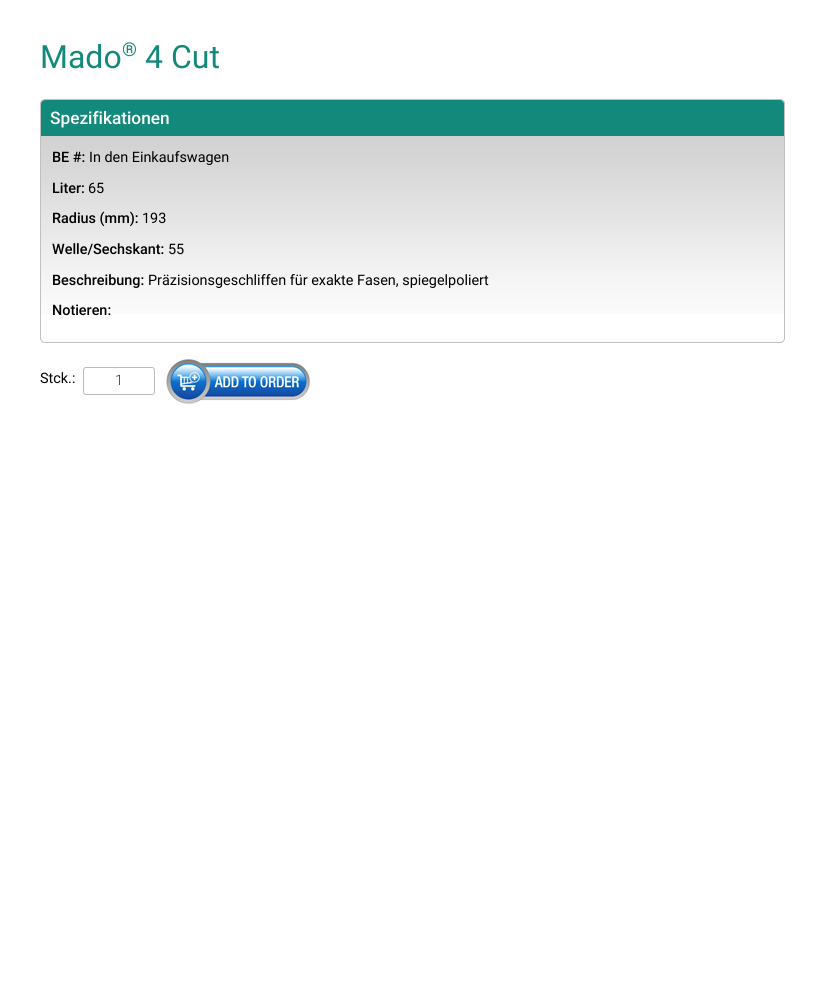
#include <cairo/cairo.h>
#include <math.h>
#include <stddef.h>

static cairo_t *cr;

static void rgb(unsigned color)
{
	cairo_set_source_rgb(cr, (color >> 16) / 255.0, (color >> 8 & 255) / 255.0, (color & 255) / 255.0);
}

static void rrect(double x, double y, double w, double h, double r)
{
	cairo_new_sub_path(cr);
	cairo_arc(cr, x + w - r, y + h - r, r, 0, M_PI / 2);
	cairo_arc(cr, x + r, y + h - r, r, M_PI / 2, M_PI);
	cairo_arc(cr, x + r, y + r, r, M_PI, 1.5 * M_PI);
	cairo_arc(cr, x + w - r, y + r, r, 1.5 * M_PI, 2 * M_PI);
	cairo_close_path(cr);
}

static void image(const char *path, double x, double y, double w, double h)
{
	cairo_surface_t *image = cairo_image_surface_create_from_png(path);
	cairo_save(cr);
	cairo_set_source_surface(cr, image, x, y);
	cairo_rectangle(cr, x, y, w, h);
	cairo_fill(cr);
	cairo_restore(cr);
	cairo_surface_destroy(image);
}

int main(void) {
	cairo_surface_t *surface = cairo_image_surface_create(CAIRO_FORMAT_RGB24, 825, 994);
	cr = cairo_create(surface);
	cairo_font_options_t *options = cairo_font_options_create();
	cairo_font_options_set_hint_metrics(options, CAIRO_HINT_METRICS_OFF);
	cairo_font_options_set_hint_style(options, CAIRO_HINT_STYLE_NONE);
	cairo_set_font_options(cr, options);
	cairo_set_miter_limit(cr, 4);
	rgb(0xffffff);
	cairo_paint(cr);
	image("img/1.png", 40, 100, 745, 214);
	rrect(40.5, 99.5, 744, 243, 4.5);
	rgb(0xc0c0c0);
	cairo_set_line_width(cr, 1);
	cairo_stroke(cr);
	rgb(0x13897b);
	cairo_new_path(cr);
	cairo_move_to(cr, 45, 100);
	cairo_line_to(cr, 780, 100);
	cairo_curve_to(cr, 782, 100, 784, 102, 784, 104);
	cairo_line_to(cr, 784, 136);
	cairo_line_to(cr, 41, 136);
	cairo_line_to(cr, 41, 104);
	cairo_curve_to(cr, 41, 102, 43, 100, 45, 100);
	cairo_close_path(cr);
	cairo_fill(cr);
	rrect(83.5, 367.5, 71, 27, 2.5);
	rgb(0xbbbbbb);
	cairo_stroke(cr);
	image("img/2.png", 166, 359, 144, 45);
	cairo_select_font_face(cr, "Roboto", CAIRO_FONT_SLANT_NORMAL, CAIRO_FONT_WEIGHT_NORMAL);
	cairo_set_font_size(cr, 32);
	rgb(0x13897b);
	cairo_move_to(cr, 40, 68);
	cairo_show_text(cr, "Mado");
	cairo_set_font_size(cr, 19);
	cairo_move_to(cr, 122, 56);
	cairo_show_text(cr, "®");
	cairo_set_font_size(cr, 32);
	cairo_move_to(cr, 145, 68);
	cairo_show_text(cr, "4 Cut");
	cairo_select_font_face(cr, "Roboto Medium", CAIRO_FONT_SLANT_NORMAL, CAIRO_FONT_WEIGHT_NORMAL);
	cairo_set_font_size(cr, 17.25);
	rgb(0xffffff);
	cairo_move_to(cr, 50, 124);
	cairo_show_text(cr, "Spezifikationen");
	cairo_set_font_size(cr, 14.4);
	rgb(0x000000);
	cairo_move_to(cr, 52, 162);
	cairo_show_text(cr, "BE #:");
	cairo_select_font_face(cr, "Roboto", CAIRO_FONT_SLANT_NORMAL, CAIRO_FONT_WEIGHT_NORMAL);
	cairo_move_to(cr, 89, 162);
	cairo_show_text(cr, "In den Einkaufswagen");
	cairo_select_font_face(cr, "Roboto Medium", CAIRO_FONT_SLANT_NORMAL, CAIRO_FONT_WEIGHT_NORMAL);
	cairo_move_to(cr, 52, 193);
	cairo_show_text(cr, "Liter:");
	cairo_select_font_face(cr, "Roboto", CAIRO_FONT_SLANT_NORMAL, CAIRO_FONT_WEIGHT_NORMAL);
	cairo_move_to(cr, 88, 193);
	cairo_show_text(cr, "65");
	cairo_select_font_face(cr, "Roboto Medium", CAIRO_FONT_SLANT_NORMAL, CAIRO_FONT_WEIGHT_NORMAL);
	cairo_move_to(cr, 52, 223);
	cairo_show_text(cr, "Radius (mm):");
	cairo_select_font_face(cr, "Roboto", CAIRO_FONT_SLANT_NORMAL, CAIRO_FONT_WEIGHT_NORMAL);
	cairo_move_to(cr, 142, 223);
	cairo_show_text(cr, "193");
	cairo_select_font_face(cr, "Roboto Medium", CAIRO_FONT_SLANT_NORMAL, CAIRO_FONT_WEIGHT_NORMAL);
	cairo_move_to(cr, 52, 254);
	cairo_show_text(cr, "Welle/Sechskant:");
	cairo_select_font_face(cr, "Roboto", CAIRO_FONT_SLANT_NORMAL, CAIRO_FONT_WEIGHT_NORMAL);
	cairo_move_to(cr, 168, 254);
	cairo_show_text(cr, "55");
	cairo_select_font_face(cr, "Roboto Medium", CAIRO_FONT_SLANT_NORMAL, CAIRO_FONT_WEIGHT_NORMAL);
	cairo_move_to(cr, 52, 285);
	cairo_show_text(cr, "Beschreibung:");
	cairo_select_font_face(cr, "Roboto", CAIRO_FONT_SLANT_NORMAL, CAIRO_FONT_WEIGHT_NORMAL);
	cairo_move_to(cr, 148, 285);
	cairo_show_text(cr, "Präzisionsgeschliffen für exakte Fasen, spiegelpoliert");
	cairo_select_font_face(cr, "Roboto Medium", CAIRO_FONT_SLANT_NORMAL, CAIRO_FONT_WEIGHT_NORMAL);
	cairo_move_to(cr, 52, 315);
	cairo_show_text(cr, "Notieren:");
	cairo_select_font_face(cr, "Roboto", CAIRO_FONT_SLANT_NORMAL, CAIRO_FONT_WEIGHT_NORMAL);
	cairo_move_to(cr, 40, 383);
	cairo_show_text(cr, "Stck.:");
	cairo_select_font_face(cr, "Roboto Light", CAIRO_FONT_SLANT_NORMAL, CAIRO_FONT_WEIGHT_NORMAL);
	rgb(0x333333);
	cairo_move_to(cr, 115, 385);
	cairo_show_text(cr, "1");
	cairo_surface_write_to_png(surface, "page.png");
	cairo_font_options_destroy(options);
	cairo_destroy(cr);
	cairo_surface_destroy(surface);
	return 0;
}
